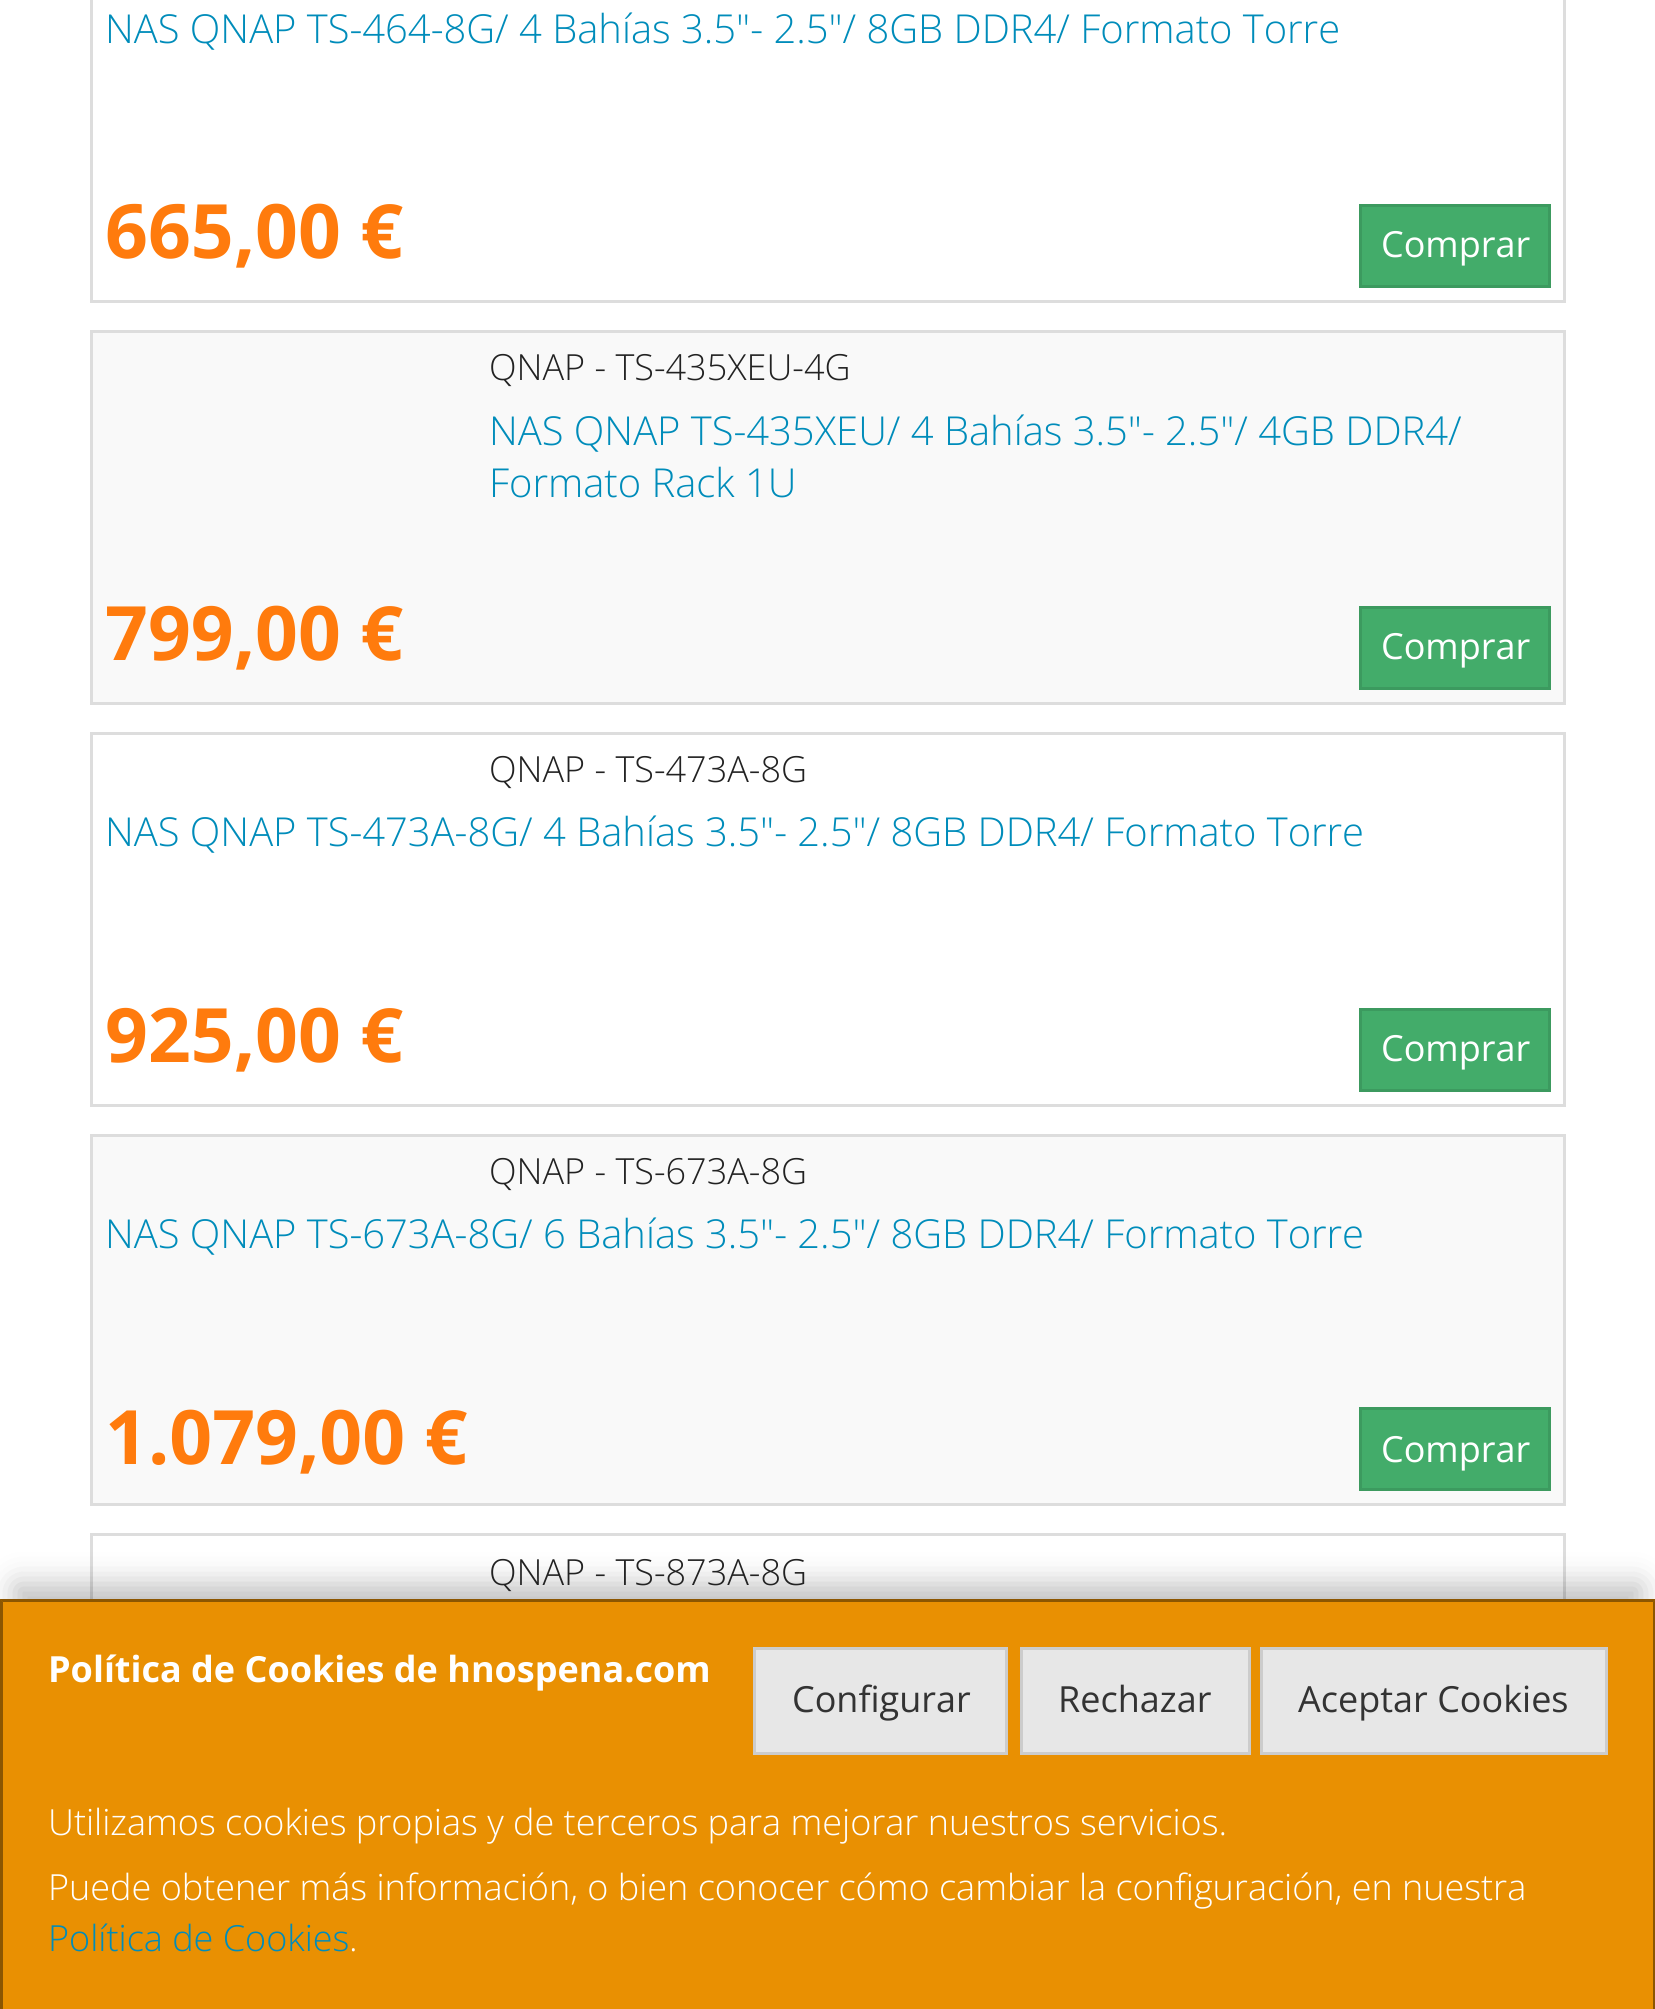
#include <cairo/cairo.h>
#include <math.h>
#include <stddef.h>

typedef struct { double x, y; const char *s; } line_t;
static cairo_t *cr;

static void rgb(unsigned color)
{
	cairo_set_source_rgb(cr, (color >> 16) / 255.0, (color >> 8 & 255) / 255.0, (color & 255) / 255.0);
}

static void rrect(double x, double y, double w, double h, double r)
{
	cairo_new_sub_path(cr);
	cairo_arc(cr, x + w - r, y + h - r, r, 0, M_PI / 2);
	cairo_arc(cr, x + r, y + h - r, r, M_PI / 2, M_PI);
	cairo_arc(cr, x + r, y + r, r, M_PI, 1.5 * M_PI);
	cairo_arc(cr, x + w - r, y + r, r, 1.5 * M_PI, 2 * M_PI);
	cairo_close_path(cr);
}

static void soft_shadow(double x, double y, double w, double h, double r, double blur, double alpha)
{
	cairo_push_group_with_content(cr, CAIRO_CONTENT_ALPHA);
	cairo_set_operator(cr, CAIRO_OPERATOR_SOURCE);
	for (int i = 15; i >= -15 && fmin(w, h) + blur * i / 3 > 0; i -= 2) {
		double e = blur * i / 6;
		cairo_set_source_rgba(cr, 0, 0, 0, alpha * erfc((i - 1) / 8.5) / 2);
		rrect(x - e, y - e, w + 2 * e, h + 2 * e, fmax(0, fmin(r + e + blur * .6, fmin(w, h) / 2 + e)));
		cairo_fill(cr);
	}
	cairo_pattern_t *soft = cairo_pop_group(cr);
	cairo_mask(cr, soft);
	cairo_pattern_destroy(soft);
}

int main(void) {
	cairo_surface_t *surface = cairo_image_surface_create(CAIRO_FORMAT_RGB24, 1655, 2009);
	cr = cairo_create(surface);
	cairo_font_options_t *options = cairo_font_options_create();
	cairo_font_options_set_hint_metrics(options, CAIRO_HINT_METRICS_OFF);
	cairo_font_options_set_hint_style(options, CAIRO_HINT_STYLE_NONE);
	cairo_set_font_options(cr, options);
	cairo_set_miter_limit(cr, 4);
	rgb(0xffffff);
	cairo_paint(cr);
	cairo_rectangle(cr, 91.5, -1.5, 1473, 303);
	rgb(0xdddddd);
	cairo_set_line_width(cr, 3);
	cairo_stroke(cr);
	rgb(0x43ac6a);
	cairo_rectangle(cr, 1360.5, 205.5, 189, 81);
	cairo_fill_preserve(cr);
	rgb(0x3c9a5f);
	cairo_stroke(cr);
	rgb(0xf9f9f9);
	cairo_rectangle(cr, 91.5, 331.5, 1473, 372);
	cairo_fill_preserve(cr);
	rgb(0xdddddd);
	cairo_stroke(cr);
	rgb(0x43ac6a);
	cairo_rectangle(cr, 1360.5, 607.5, 189, 81);
	cairo_fill_preserve(cr);
	rgb(0x3c9a5f);
	cairo_stroke(cr);
	cairo_rectangle(cr, 91.5, 733.5, 1473, 372);
	rgb(0xdddddd);
	cairo_stroke(cr);
	rgb(0x43ac6a);
	cairo_rectangle(cr, 1360.5, 1009.5, 189, 81);
	cairo_fill_preserve(cr);
	rgb(0x3c9a5f);
	cairo_stroke(cr);
	rgb(0xf9f9f9);
	cairo_rectangle(cr, 91.5, 1135.5, 1473, 369);
	cairo_fill_preserve(cr);
	rgb(0xdddddd);
	cairo_stroke(cr);
	rgb(0x43ac6a);
	cairo_rectangle(cr, 1360.5, 1408.5, 189, 81);
	cairo_fill_preserve(cr);
	rgb(0x3c9a5f);
	cairo_stroke(cr);
	cairo_rectangle(cr, 91.5, 1534.5, 1473, 372);
	rgb(0xdddddd);
	cairo_stroke(cr);
	rgb(0x000000);
	soft_shadow(15, 1584, 1626, 381, 0, 15, 0.25);
	rgb(0xe99002);
	cairo_rectangle(cr, 0, 1599, 1655, 410);
	cairo_fill(cr);
	rgb(0x8c5601);
	cairo_new_path(cr);
	cairo_move_to(cr, 0, 1599);
	cairo_line_to(cr, 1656, 1599);
	cairo_line_to(cr, 1653, 1602);
	cairo_line_to(cr, 3, 1602);
	cairo_close_path(cr);
	cairo_fill(cr);
	cairo_set_source_rgba(cr, 0, 0, 0, 0.4);
	cairo_new_path(cr);
	cairo_move_to(cr, 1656, 1599);
	cairo_line_to(cr, 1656, 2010);
	cairo_line_to(cr, 1653, 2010);
	cairo_line_to(cr, 1653, 1602);
	cairo_close_path(cr);
	cairo_fill(cr);
	cairo_new_path(cr);
	cairo_move_to(cr, 0, 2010);
	cairo_line_to(cr, 0, 1599);
	cairo_line_to(cr, 3, 1602);
	cairo_line_to(cr, 3, 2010);
	cairo_close_path(cr);
	cairo_fill(cr);
	rgb(0xe7e7e7);
	cairo_rectangle(cr, 754.5, 1648.5, 252, 105);
	cairo_fill_preserve(cr);
	rgb(0xcccccc);
	cairo_stroke(cr);
	rgb(0xe7e7e7);
	cairo_rectangle(cr, 1021.5, 1648.5, 228, 105);
	cairo_fill_preserve(cr);
	rgb(0xcccccc);
	cairo_stroke(cr);
	rgb(0xe7e7e7);
	cairo_rectangle(cr, 1261.5, 1648.5, 345, 105);
	cairo_fill_preserve(cr);
	rgb(0xcccccc);
	cairo_stroke(cr);
	cairo_select_font_face(cr, "Open Sans Light", CAIRO_FONT_SLANT_NORMAL, CAIRO_FONT_WEIGHT_NORMAL);
	cairo_set_font_size(cr, 39.9);
	rgb(0x008cba);
	cairo_move_to(cr, 105, 43);
	cairo_show_text(cr, "NAS QNAP TS-464-8G/ 4 Bahías 3.5\"- 2.5\"/ 8GB DDR4/ Formato Torre");
	cairo_select_font_face(cr, "Open Sans", CAIRO_FONT_SLANT_NORMAL, CAIRO_FONT_WEIGHT_BOLD);
	cairo_set_font_size(cr, 75);
	rgb(0xff7b0d);
	cairo_move_to(cr, 105, 258);
	cairo_show_text(cr, "665,00 €");
	cairo_select_font_face(cr, "Open Sans", CAIRO_FONT_SLANT_NORMAL, CAIRO_FONT_WEIGHT_NORMAL);
	cairo_set_font_size(cr, 36);
	rgb(0xffffff);
	cairo_move_to(cr, 1381, 257);
	cairo_show_text(cr, "Comprar");
	cairo_select_font_face(cr, "Open Sans Light", CAIRO_FONT_SLANT_NORMAL, CAIRO_FONT_WEIGHT_NORMAL);
	rgb(0x222222);
	cairo_move_to(cr, 489, 380);
	cairo_show_text(cr, "QNAP - TS-435XEU-4G");
	cairo_set_font_size(cr, 39.9);
	rgb(0x008cba);
	cairo_move_to(cr, 489, 445);
	cairo_show_text(cr, "NAS QNAP TS-435XEU/ 4 Bahías 3.5\"- 2.5\"/ 4GB DDR4/");
	cairo_move_to(cr, 489, 497);
	cairo_show_text(cr, "Formato Rack 1U");
	cairo_select_font_face(cr, "Open Sans", CAIRO_FONT_SLANT_NORMAL, CAIRO_FONT_WEIGHT_BOLD);
	cairo_set_font_size(cr, 75);
	rgb(0xff7b0d);
	cairo_move_to(cr, 105, 660);
	cairo_show_text(cr, "799,00 €");
	cairo_select_font_face(cr, "Open Sans", CAIRO_FONT_SLANT_NORMAL, CAIRO_FONT_WEIGHT_NORMAL);
	cairo_set_font_size(cr, 36);
	rgb(0xffffff);
	cairo_move_to(cr, 1381, 659);
	cairo_show_text(cr, "Comprar");
	cairo_select_font_face(cr, "Open Sans Light", CAIRO_FONT_SLANT_NORMAL, CAIRO_FONT_WEIGHT_NORMAL);
	rgb(0x222222);
	cairo_move_to(cr, 489, 782);
	cairo_show_text(cr, "QNAP - TS-473A-8G");
	cairo_set_font_size(cr, 39.9);
	rgb(0x008cba);
	cairo_move_to(cr, 105, 846);
	cairo_show_text(cr, "NAS QNAP TS-473A-8G/ 4 Bahías 3.5\"- 2.5\"/ 8GB DDR4/ Formato Torre");
	cairo_select_font_face(cr, "Open Sans", CAIRO_FONT_SLANT_NORMAL, CAIRO_FONT_WEIGHT_BOLD);
	cairo_set_font_size(cr, 75);
	rgb(0xff7b0d);
	cairo_move_to(cr, 105, 1062);
	cairo_show_text(cr, "925,00 €");
	cairo_select_font_face(cr, "Open Sans", CAIRO_FONT_SLANT_NORMAL, CAIRO_FONT_WEIGHT_NORMAL);
	cairo_set_font_size(cr, 36);
	rgb(0xffffff);
	cairo_move_to(cr, 1381, 1061);
	cairo_show_text(cr, "Comprar");
	cairo_select_font_face(cr, "Open Sans Light", CAIRO_FONT_SLANT_NORMAL, CAIRO_FONT_WEIGHT_NORMAL);
	rgb(0x222222);
	cairo_move_to(cr, 489, 1184);
	cairo_show_text(cr, "QNAP - TS-673A-8G");
	cairo_set_font_size(cr, 39.9);
	rgb(0x008cba);
	cairo_move_to(cr, 105, 1248);
	cairo_show_text(cr, "NAS QNAP TS-673A-8G/ 6 Bahías 3.5\"- 2.5\"/ 8GB DDR4/ Formato Torre");
	cairo_select_font_face(cr, "Open Sans", CAIRO_FONT_SLANT_NORMAL, CAIRO_FONT_WEIGHT_BOLD);
	cairo_set_font_size(cr, 75);
	rgb(0xff7b0d);
	cairo_move_to(cr, 105, 1464);
	cairo_show_text(cr, "1.079,00 €");
	cairo_select_font_face(cr, "Open Sans", CAIRO_FONT_SLANT_NORMAL, CAIRO_FONT_WEIGHT_NORMAL);
	cairo_set_font_size(cr, 36);
	rgb(0xffffff);
	cairo_move_to(cr, 1381, 1462);
	cairo_show_text(cr, "Comprar");
	cairo_select_font_face(cr, "Open Sans Light", CAIRO_FONT_SLANT_NORMAL, CAIRO_FONT_WEIGHT_NORMAL);
	rgb(0x222222);
	cairo_move_to(cr, 489, 1585);
	cairo_show_text(cr, "QNAP - TS-873A-8G");
	cairo_select_font_face(cr, "Open Sans", CAIRO_FONT_SLANT_NORMAL, CAIRO_FONT_WEIGHT_BOLD);
	rgb(0xffffff);
	cairo_move_to(cr, 48, 1682);
	cairo_show_text(cr, "Política de Cookies de hnospena.com");
	cairo_select_font_face(cr, "Open Sans", CAIRO_FONT_SLANT_NORMAL, CAIRO_FONT_WEIGHT_NORMAL);
	rgb(0x333333);
	{
		static const line_t items[] = {
			{792, 1712, "Configurar"},
			{1058, 1712, "Rechazar"},
			{1298, 1712, "Aceptar Cookies"},
		};
		for (size_t i = 0; i < sizeof items / sizeof *items; i++) {
			cairo_move_to(cr, items[i].x, items[i].y);
			cairo_show_text(cr, items[i].s);
		}
	}
	cairo_select_font_face(cr, "Open Sans Light", CAIRO_FONT_SLANT_NORMAL, CAIRO_FONT_WEIGHT_NORMAL);
	rgb(0xffffff);
	cairo_move_to(cr, 48, 1835);
	cairo_show_text(cr, "Utilizamos cookies propias y de terceros para mejorar nuestros servicios.");
	cairo_move_to(cr, 48, 1900);
	cairo_show_text(cr, "Puede obtener más información, o bien conocer cómo cambiar la configuración, en nuestra");
	rgb(0x008cba);
	cairo_move_to(cr, 48, 1951);
	cairo_show_text(cr, "Política de Cookies");
	rgb(0xffffff);
	cairo_move_to(cr, 349, 1951);
	cairo_show_text(cr, ".");
	cairo_surface_write_to_png(surface, "page.png");
	cairo_font_options_destroy(options);
	cairo_destroy(cr);
	cairo_surface_destroy(surface);
	return 0;
}
